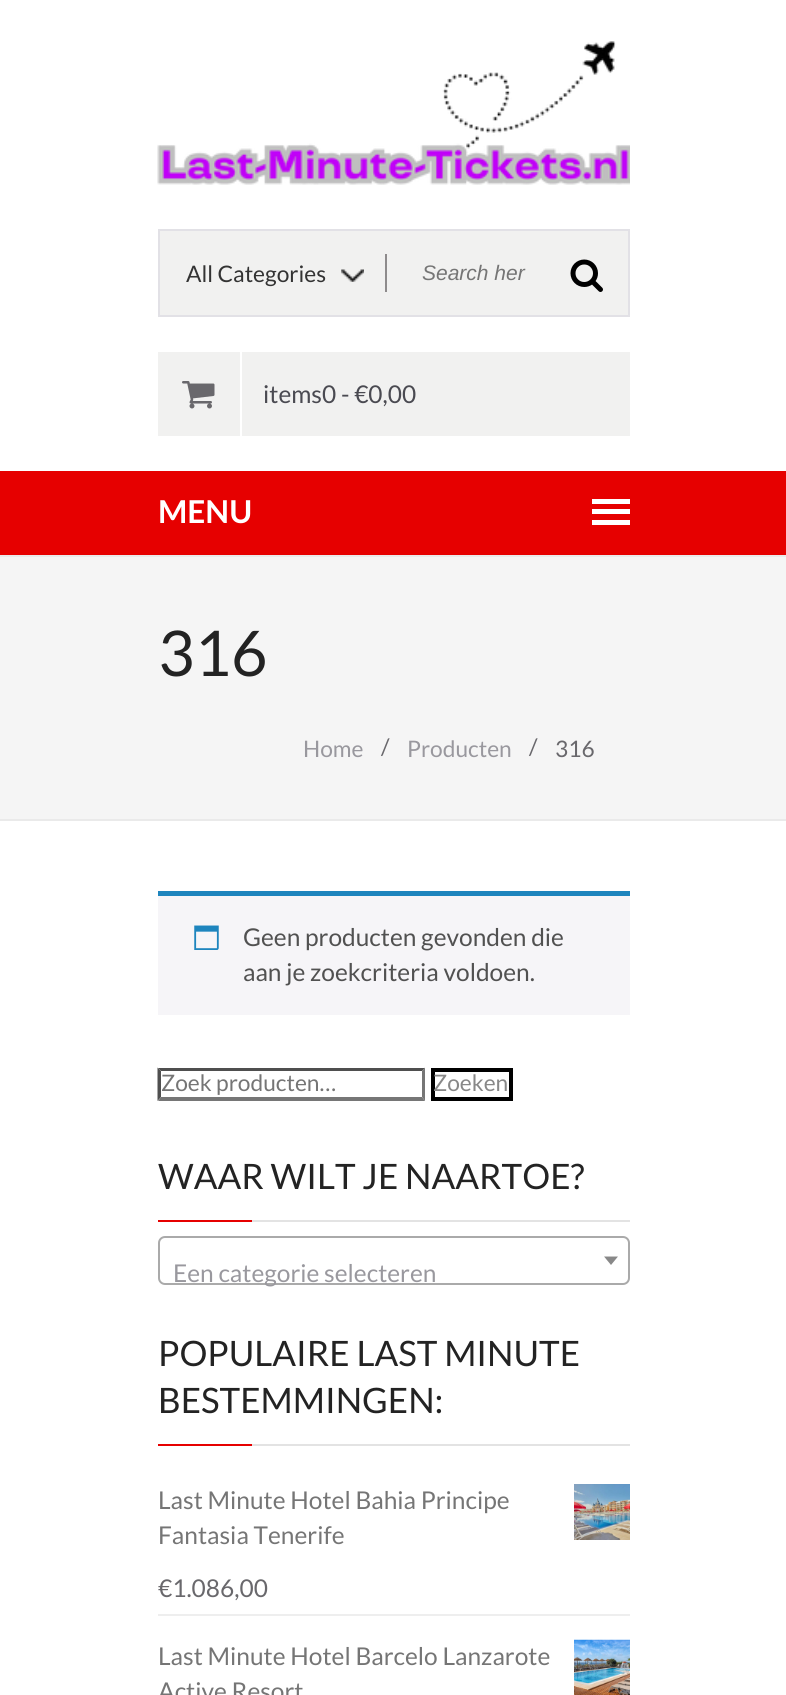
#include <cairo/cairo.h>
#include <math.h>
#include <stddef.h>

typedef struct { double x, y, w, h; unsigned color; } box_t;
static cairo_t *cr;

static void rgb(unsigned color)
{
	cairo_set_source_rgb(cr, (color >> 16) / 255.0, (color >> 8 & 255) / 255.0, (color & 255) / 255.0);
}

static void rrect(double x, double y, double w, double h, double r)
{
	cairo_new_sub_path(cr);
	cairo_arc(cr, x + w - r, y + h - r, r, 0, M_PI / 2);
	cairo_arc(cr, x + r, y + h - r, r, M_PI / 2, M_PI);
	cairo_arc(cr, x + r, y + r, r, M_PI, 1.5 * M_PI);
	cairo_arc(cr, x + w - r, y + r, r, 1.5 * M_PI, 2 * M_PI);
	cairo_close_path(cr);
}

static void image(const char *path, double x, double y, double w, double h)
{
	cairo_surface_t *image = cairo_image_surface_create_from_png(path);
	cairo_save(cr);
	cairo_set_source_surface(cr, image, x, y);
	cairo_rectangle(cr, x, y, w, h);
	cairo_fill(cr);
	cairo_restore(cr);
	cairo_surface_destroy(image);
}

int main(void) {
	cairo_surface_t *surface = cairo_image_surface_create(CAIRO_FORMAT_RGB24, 786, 1695);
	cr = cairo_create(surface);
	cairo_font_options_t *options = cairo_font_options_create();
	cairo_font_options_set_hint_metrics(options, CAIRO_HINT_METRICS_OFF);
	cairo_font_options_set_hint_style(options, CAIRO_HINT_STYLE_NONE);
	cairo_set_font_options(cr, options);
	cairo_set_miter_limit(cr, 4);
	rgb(0xffffff);
	cairo_paint(cr);
	image("img/1.png", 157, 41, 473, 144);
	rgb(0xf1f1f0);
	cairo_rectangle(cr, 159, 230, 470, 86);
	cairo_fill_preserve(cr);
	rgb(0xe2e1e6);
	cairo_stroke(cr);
	image("img/2.png", 341, 269, 23, 13);
	rgb(0x8e8b8c);
	cairo_rectangle(cr, 385, 254, 2, 38);
	cairo_fill(cr);
	image("img/3.png", 570, 259, 33, 33);
	rgb(0xf1f1f0);
	cairo_rectangle(cr, 158, 352, 472, 84);
	cairo_fill(cr);
	rgb(0xffffff);
	cairo_rectangle(cr, 240, 352, 2, 84);
	cairo_fill(cr);
	image("img/4.png", 182, 381, 33, 28);
	{
		static const box_t items[] = {
			{0, 471, 786, 84, 0xe60000},
			{592, 499, 38, 5, 0xffffff},
			{592, 509, 38, 5, 0xffffff},
			{592, 520, 38, 5, 0xffffff},
			{0, 557, 786, 262, 0xf5f5f5},
			{0, 555, 786, 2, 0xeaeaea},
			{0, 819, 786, 2, 0xeaeaea},
			{158, 896, 472, 119, 0xf6f5f8},
			{158, 891, 472, 5, 0x1e85be},
		};
		for (size_t i = 0; i < sizeof items / sizeof *items; i++) {
			rgb(items[i].color);
			cairo_rectangle(cr, items[i].x, items[i].y, items[i].w, items[i].h);
			cairo_fill(cr);
		}
	}
	image("img/5.png", 194, 925, 25, 25);
	rgb(0x4f4f4f);
	cairo_new_path(cr);
	cairo_move_to(cr, 158, 1068);
	cairo_line_to(cr, 425, 1068);
	cairo_line_to(cr, 422, 1071);
	cairo_line_to(cr, 161, 1071);
	cairo_close_path(cr);
	cairo_fill(cr);
	rgb(0x767676);
	cairo_new_path(cr);
	cairo_move_to(cr, 425, 1067.5);
	cairo_line_to(cr, 425, 1101);
	cairo_line_to(cr, 422, 1097);
	cairo_line_to(cr, 422, 1071);
	cairo_close_path(cr);
	cairo_fill(cr);
	cairo_new_path(cr);
	cairo_move_to(cr, 425, 1101);
	cairo_line_to(cr, 158, 1101);
	cairo_line_to(cr, 161, 1097);
	cairo_line_to(cr, 422, 1097);
	cairo_close_path(cr);
	cairo_fill(cr);
	rgb(0x4f4f4f);
	cairo_new_path(cr);
	cairo_move_to(cr, 157.5, 1101);
	cairo_line_to(cr, 157.5, 1067.5);
	cairo_line_to(cr, 161, 1071);
	cairo_line_to(cr, 161, 1097);
	cairo_close_path(cr);
	cairo_fill(cr);
	cairo_rectangle(cr, 433, 1070, 78, 29);
	rgb(0x000000);
	cairo_set_line_width(cr, 4);
	cairo_stroke(cr);
	rgb(0xe60000);
	cairo_rectangle(cr, 158, 1220, 94, 2);
	cairo_fill(cr);
	rgb(0xe3e3e3);
	cairo_rectangle(cr, 252, 1220, 378, 2);
	cairo_fill(cr);
	rrect(159, 1237, 470, 47, 6);
	rgb(0xaaaaaa);
	cairo_set_line_width(cr, 2);
	cairo_stroke(cr);
	rgb(0x888888);
	cairo_new_path(cr);
	cairo_move_to(cr, 604, 1256.5);
	cairo_line_to(cr, 618, 1256.5);
	cairo_line_to(cr, 611, 1265);
	cairo_close_path(cr);
	cairo_fill(cr);
	{
		static const box_t items[] = {
			{158, 1444, 94, 2, 0xe60000},
			{252, 1444, 378, 2, 0xe3e3e3},
			{158, 1614, 472, 2, 0xeeeeee},
		};
		for (size_t i = 0; i < sizeof items / sizeof *items; i++) {
			rgb(items[i].color);
			cairo_rectangle(cr, items[i].x, items[i].y, items[i].w, items[i].h);
			cairo_fill(cr);
		}
	}
	image("img/6.png", 574, 1484, 56, 56);
	image("img/7.png", 574, 1639, 56, 56);
	cairo_select_font_face(cr, "Lato", CAIRO_FONT_SLANT_NORMAL, CAIRO_FONT_WEIGHT_NORMAL);
	cairo_set_font_size(cr, 22.75);
	rgb(0x333333);
	cairo_move_to(cr, 186, 282);
	cairo_show_text(cr, "All Categories");
	cairo_select_font_face(cr, "Liberation Sans", CAIRO_FONT_SLANT_ITALIC, CAIRO_FONT_WEIGHT_NORMAL);
	cairo_set_font_size(cr, 21);
	rgb(0x757575);
	cairo_move_to(cr, 422, 280);
	cairo_show_text(cr, "Search her");
	cairo_select_font_face(cr, "Lato", CAIRO_FONT_SLANT_NORMAL, CAIRO_FONT_WEIGHT_NORMAL);
	cairo_set_font_size(cr, 24.5);
	rgb(0x4a4a51);
	cairo_move_to(cr, 263, 403);
	cairo_show_text(cr, "items0 - €0,00");
	cairo_select_font_face(cr, "Lato", CAIRO_FONT_SLANT_NORMAL, CAIRO_FONT_WEIGHT_BOLD);
	cairo_set_font_size(cr, 31.5);
	rgb(0xffffff);
	cairo_move_to(cr, 158, 523);
	cairo_show_text(cr, "MENU");
	cairo_select_font_face(cr, "Lato", CAIRO_FONT_SLANT_NORMAL, CAIRO_FONT_WEIGHT_NORMAL);
	cairo_set_font_size(cr, 63);
	rgb(0x232323);
	cairo_move_to(cr, 158, 676);
	cairo_show_text(cr, "316");
	cairo_set_font_size(cr, 22.75);
	rgb(0x99989e);
	cairo_move_to(cr, 303, 757);
	cairo_show_text(cr, "Home");
	rgb(0x69686c);
	cairo_move_to(cr, 381, 755);
	cairo_show_text(cr, "/");
	rgb(0x99989e);
	cairo_move_to(cr, 407, 757);
	cairo_show_text(cr, "Producten");
	rgb(0x69686c);
	cairo_move_to(cr, 529, 755);
	cairo_show_text(cr, "/");
	cairo_move_to(cr, 555, 757);
	cairo_show_text(cr, "316");
	cairo_set_font_size(cr, 24.5);
	rgb(0x515151);
	cairo_move_to(cr, 243, 946);
	cairo_show_text(cr, "Geen producten gevonden die");
	cairo_move_to(cr, 243, 981);
	cairo_show_text(cr, "aan je zoekcriteria voldoen.");
	cairo_set_font_size(cr, 22.75);
	rgb(0x757575);
	cairo_move_to(cr, 161, 1091);
	cairo_show_text(cr, "Zoek producten…");
	rgb(0x888888);
	cairo_move_to(cr, 433, 1091);
	cairo_show_text(cr, "Zoeken");
	cairo_set_font_size(cr, 35);
	rgb(0x232323);
	cairo_move_to(cr, 158, 1189);
	cairo_show_text(cr, "WAAR WILT JE NAARTOE?");
	cairo_set_font_size(cr, 24.5);
	rgb(0x99989e);
	cairo_move_to(cr, 173, 1282);
	cairo_show_text(cr, "Een categorie selecteren");
	cairo_set_font_size(cr, 35);
	rgb(0x232323);
	cairo_move_to(cr, 158, 1366);
	cairo_show_text(cr, "POPULAIRE LAST MINUTE");
	cairo_move_to(cr, 158, 1413);
	cairo_show_text(cr, "BESTEMMINGEN:");
	cairo_set_font_size(cr, 24.5);
	rgb(0x757575);
	cairo_move_to(cr, 158, 1509);
	cairo_show_text(cr, "Last Minute Hotel Bahia Principe");
	cairo_move_to(cr, 158, 1544);
	cairo_show_text(cr, "Fantasia Tenerife");
	rgb(0x69686c);
	cairo_move_to(cr, 158, 1597);
	cairo_show_text(cr, "€1.086,00");
	rgb(0x757575);
	cairo_move_to(cr, 158, 1665);
	cairo_show_text(cr, "Last Minute Hotel Barcelo Lanzarote");
	cairo_move_to(cr, 158, 1700);
	cairo_show_text(cr, "Active Resort");
	cairo_surface_write_to_png(surface, "page.png");
	cairo_font_options_destroy(options);
	cairo_destroy(cr);
	cairo_surface_destroy(surface);
	return 0;
}
